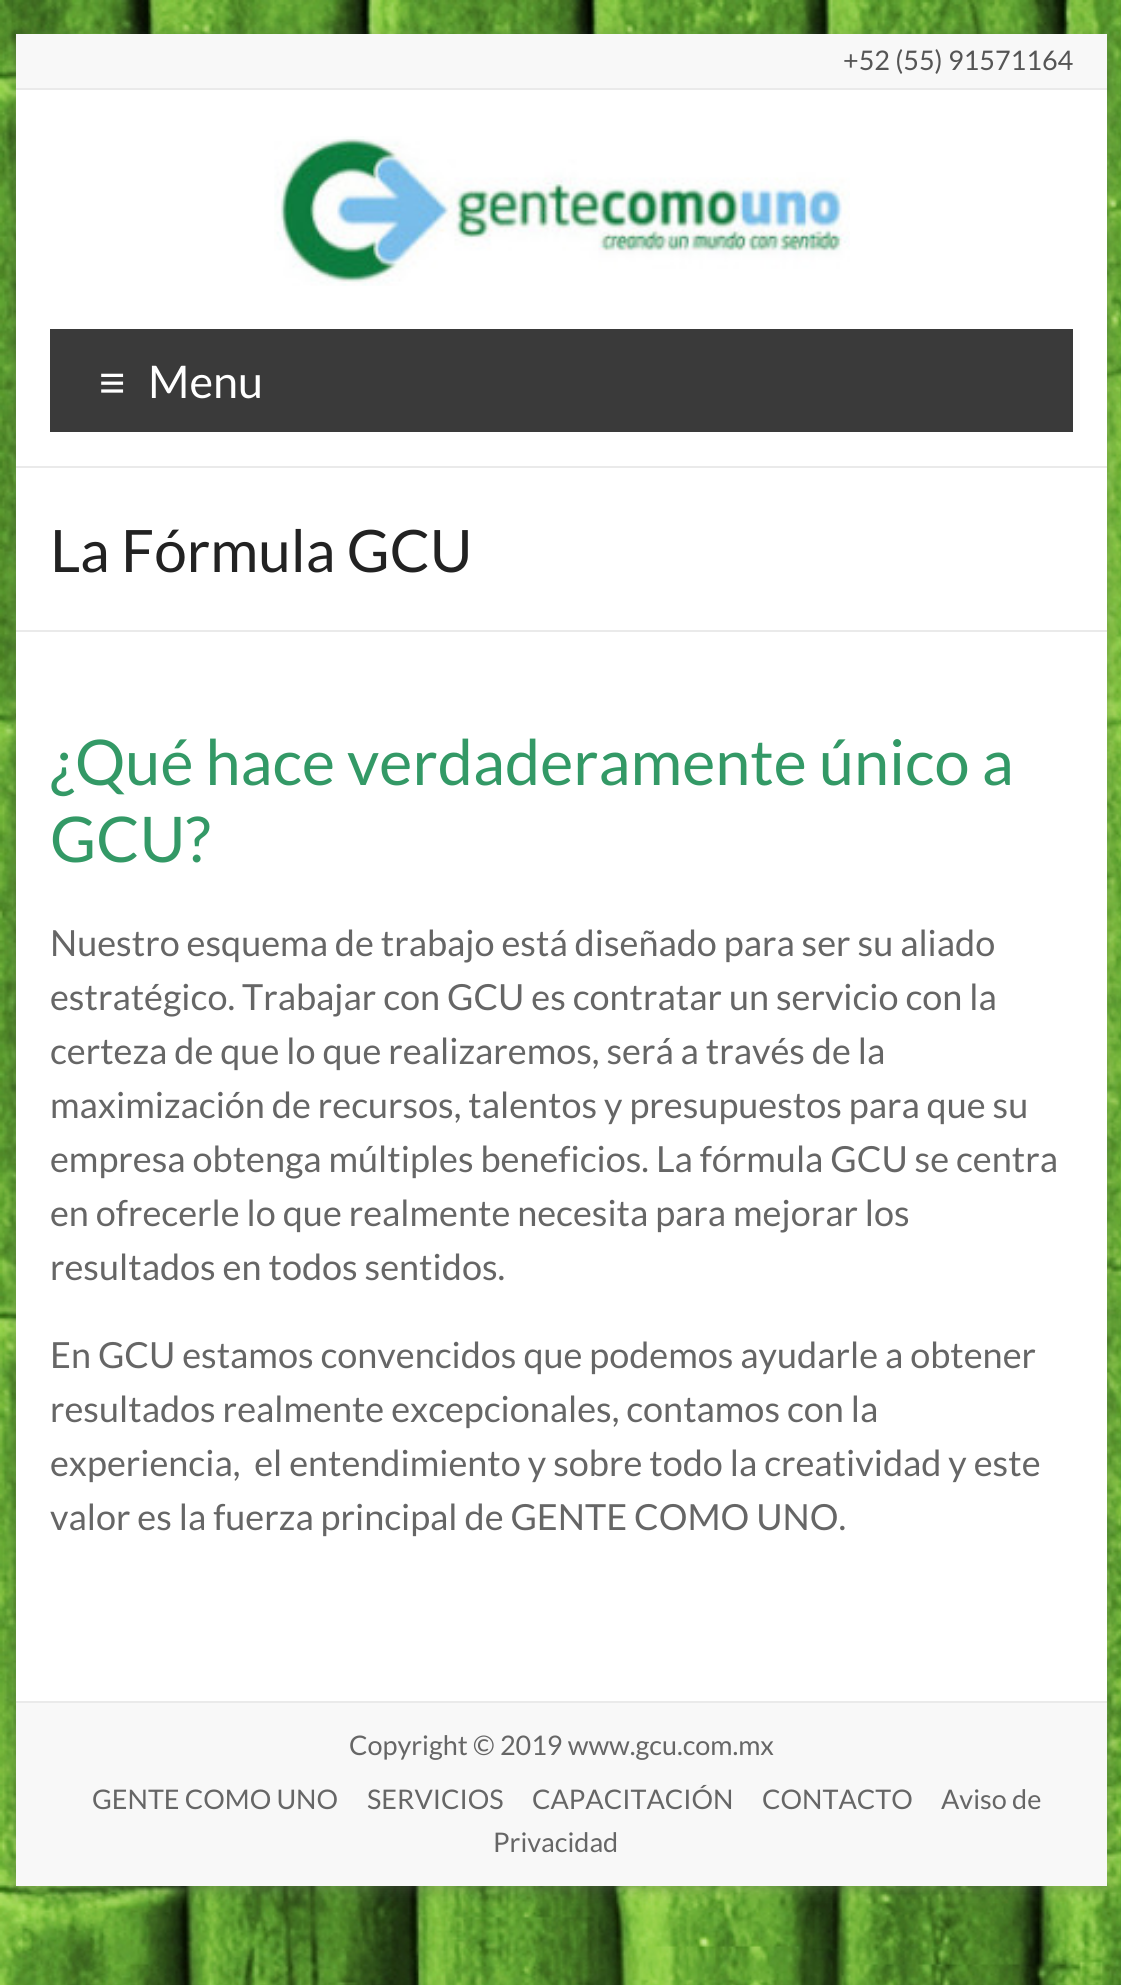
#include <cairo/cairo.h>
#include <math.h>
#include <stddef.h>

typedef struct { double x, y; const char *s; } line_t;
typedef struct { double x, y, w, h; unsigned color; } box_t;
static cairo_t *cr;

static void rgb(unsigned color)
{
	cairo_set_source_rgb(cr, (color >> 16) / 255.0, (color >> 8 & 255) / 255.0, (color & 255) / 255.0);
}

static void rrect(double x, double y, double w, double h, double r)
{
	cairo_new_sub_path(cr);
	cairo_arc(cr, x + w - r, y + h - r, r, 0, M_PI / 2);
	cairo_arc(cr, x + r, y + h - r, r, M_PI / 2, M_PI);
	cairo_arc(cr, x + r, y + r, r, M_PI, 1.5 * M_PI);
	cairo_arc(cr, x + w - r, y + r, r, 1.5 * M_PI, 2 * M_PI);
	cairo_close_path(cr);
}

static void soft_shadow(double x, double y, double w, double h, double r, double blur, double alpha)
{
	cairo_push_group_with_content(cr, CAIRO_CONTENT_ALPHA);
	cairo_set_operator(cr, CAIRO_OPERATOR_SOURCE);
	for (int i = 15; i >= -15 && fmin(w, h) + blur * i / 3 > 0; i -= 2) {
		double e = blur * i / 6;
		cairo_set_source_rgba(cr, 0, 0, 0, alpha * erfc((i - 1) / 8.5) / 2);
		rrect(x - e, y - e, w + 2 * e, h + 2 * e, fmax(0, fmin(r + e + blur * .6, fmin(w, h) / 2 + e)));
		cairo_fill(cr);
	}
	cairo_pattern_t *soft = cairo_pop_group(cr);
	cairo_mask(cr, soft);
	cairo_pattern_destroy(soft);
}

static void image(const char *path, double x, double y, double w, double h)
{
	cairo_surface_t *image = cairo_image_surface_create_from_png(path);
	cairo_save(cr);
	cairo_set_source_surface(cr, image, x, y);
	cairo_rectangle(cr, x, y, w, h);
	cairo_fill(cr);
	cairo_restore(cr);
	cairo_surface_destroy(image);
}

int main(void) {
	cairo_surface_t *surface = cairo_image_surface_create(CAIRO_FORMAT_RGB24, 1121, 1985);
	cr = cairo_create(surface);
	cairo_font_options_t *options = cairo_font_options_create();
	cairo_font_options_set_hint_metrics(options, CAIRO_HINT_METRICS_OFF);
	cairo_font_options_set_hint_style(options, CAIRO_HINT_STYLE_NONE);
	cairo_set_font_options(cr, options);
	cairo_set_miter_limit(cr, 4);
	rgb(0xffffff);
	cairo_paint(cr);
	image("img/1.png", 0, 0, 1121, 1985);
	rgb(0x646464);
	soft_shadow(16, 38, 1091, 1852, 0, 7, 0.3);
	{
		static const box_t items[] = {
			{16, 90, 1091, 1611, 0xffffff},
			{16, 34, 1091, 54, 0xf8f8f8},
			{16, 88, 1091, 2, 0xeaeaea},
			{16, 466, 1091, 2, 0xeaeaea},
		};
		for (size_t i = 0; i < sizeof items / sizeof *items; i++) {
			rgb(items[i].color);
			cairo_rectangle(cr, items[i].x, items[i].y, items[i].w, items[i].h);
			cairo_fill(cr);
		}
	}
	image("img/2.png", 274, 136, 576, 150);
	{
		static const box_t items[] = {
			{50, 329, 1023, 103, 0x3a3a3a},
			{16, 630, 1091, 2, 0xeaeaea},
			{16, 1703, 1091, 183, 0xf8f8f8},
			{16, 1701, 1091, 2, 0xeaeaea},
		};
		for (size_t i = 0; i < sizeof items / sizeof *items; i++) {
			rgb(items[i].color);
			cairo_rectangle(cr, items[i].x, items[i].y, items[i].w, items[i].h);
			cairo_fill(cr);
		}
	}
	cairo_select_font_face(cr, "Lato", CAIRO_FONT_SLANT_NORMAL, CAIRO_FONT_WEIGHT_NORMAL);
	cairo_set_font_size(cr, 27);
	rgb(0x555555);
	cairo_move_to(cr, 843, 70);
	cairo_show_text(cr, "+52 (55) 91571164");
	cairo_select_font_face(cr, "Liberation Sans", CAIRO_FONT_SLANT_NORMAL, CAIRO_FONT_WEIGHT_NORMAL);
	cairo_set_font_size(cr, 45);
	rgb(0xffffff);
	cairo_move_to(cr, 99, 398);
	cairo_show_text(cr, "≡");
	cairo_select_font_face(cr, "Lato", CAIRO_FONT_SLANT_NORMAL, CAIRO_FONT_WEIGHT_NORMAL);
	cairo_move_to(cr, 148, 398);
	cairo_show_text(cr, "Menu");
	cairo_set_font_size(cr, 58.5);
	rgb(0x222222);
	cairo_move_to(cr, 50, 572);
	cairo_show_text(cr, "La Fórmula GCU");
	cairo_set_font_size(cr, 63);
	rgb(0x339966);
	cairo_move_to(cr, 50, 785);
	cairo_show_text(cr, "¿Qué hace verdaderamente único a");
	cairo_move_to(cr, 50, 862);
	cairo_show_text(cr, "GCU?");
	cairo_set_font_size(cr, 36);
	rgb(0x666666);
	{
		static const line_t items[] = {
			{50, 956, "Nuestro esquema de trabajo está diseñado para ser su aliado"},
			{50, 1010, "estratégico. Trabajar con GCU es contratar un servicio con la"},
			{50, 1064, "certeza de que lo que realizaremos, será a través de la"},
			{50, 1118, "maximización de recursos, talentos y presupuestos para que su"},
			{50, 1172, "empresa obtenga múltiples beneficios. La fórmula GCU se centra"},
			{50, 1226, "en ofrecerle lo que realmente necesita para mejorar los"},
			{50, 1280, "resultados en todos sentidos."},
			{50, 1368, "En GCU estamos convencidos que podemos ayudarle a obtener"},
			{50, 1422, "resultados realmente excepcionales, contamos con la"},
			{50, 1476, "experiencia,  el entendimiento y sobre todo la creatividad y este"},
			{50, 1530, "valor es la fuerza principal de GENTE COMO UNO."},
		};
		for (size_t i = 0; i < sizeof items / sizeof *items; i++) {
			cairo_move_to(cr, items[i].x, items[i].y);
			cairo_show_text(cr, items[i].s);
		}
	}
	cairo_set_font_size(cr, 27);
	{
		static const line_t items[] = {
			{349, 1755, "Copyright © 2019 www.gcu.com.mx"},
			{92, 1809, "GENTE COMO UNO"},
			{367, 1809, "SERVICIOS"},
			{532, 1809, "CAPACITACIÓN"},
			{762, 1809, "CONTACTO"},
			{941, 1809, "Aviso de"},
			{493, 1852, "Privacidad"},
		};
		for (size_t i = 0; i < sizeof items / sizeof *items; i++) {
			cairo_move_to(cr, items[i].x, items[i].y);
			cairo_show_text(cr, items[i].s);
		}
	}
	cairo_surface_write_to_png(surface, "page.png");
	cairo_font_options_destroy(options);
	cairo_destroy(cr);
	cairo_surface_destroy(surface);
	return 0;
}
